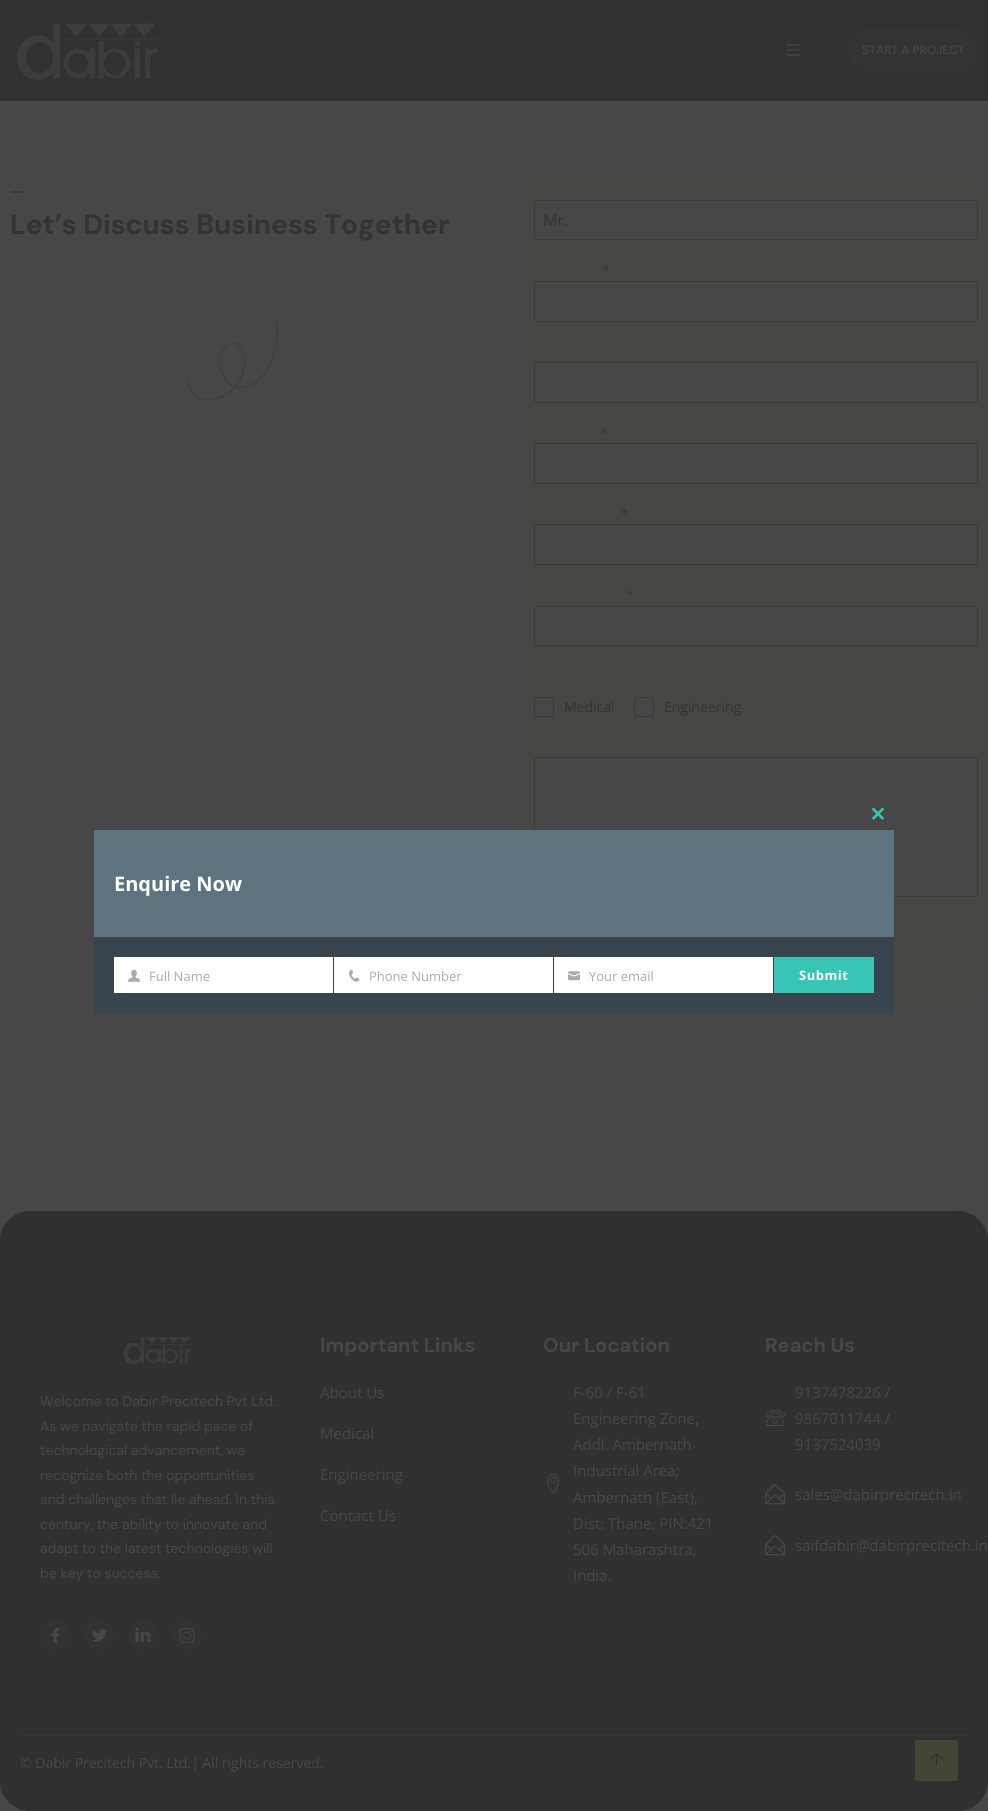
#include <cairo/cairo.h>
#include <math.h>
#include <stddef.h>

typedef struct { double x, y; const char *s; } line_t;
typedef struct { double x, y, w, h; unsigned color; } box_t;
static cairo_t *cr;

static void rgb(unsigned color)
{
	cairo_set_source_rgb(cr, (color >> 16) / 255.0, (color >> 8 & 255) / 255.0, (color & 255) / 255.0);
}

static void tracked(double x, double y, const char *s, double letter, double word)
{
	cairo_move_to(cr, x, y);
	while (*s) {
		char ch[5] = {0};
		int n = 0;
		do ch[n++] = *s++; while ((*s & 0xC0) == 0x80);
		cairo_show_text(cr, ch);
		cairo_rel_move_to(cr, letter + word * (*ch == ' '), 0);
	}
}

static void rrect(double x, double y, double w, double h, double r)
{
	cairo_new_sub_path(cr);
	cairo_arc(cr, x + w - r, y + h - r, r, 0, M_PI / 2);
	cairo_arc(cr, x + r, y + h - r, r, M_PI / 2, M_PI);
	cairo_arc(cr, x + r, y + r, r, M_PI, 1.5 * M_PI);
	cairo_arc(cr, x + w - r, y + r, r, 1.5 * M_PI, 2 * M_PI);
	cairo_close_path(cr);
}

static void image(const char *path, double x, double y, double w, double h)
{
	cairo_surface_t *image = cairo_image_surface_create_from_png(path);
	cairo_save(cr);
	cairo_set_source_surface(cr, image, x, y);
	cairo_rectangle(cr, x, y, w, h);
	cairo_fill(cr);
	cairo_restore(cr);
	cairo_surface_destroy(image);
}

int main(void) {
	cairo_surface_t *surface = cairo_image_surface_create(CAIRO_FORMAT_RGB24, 988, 1811);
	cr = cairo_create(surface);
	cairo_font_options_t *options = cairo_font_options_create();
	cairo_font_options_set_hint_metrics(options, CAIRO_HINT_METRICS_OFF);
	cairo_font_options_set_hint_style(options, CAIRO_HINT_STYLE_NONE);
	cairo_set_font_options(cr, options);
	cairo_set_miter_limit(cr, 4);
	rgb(0x474747);
	cairo_paint(cr);
	rgb(0x31312f);
	cairo_rectangle(cr, 0, 0, 988, 101);
	cairo_fill(cr);
	image("img/1.png", 16, 23, 142, 58);
	image("img/2.png", 786, 44, 14, 12);
	rgb(0x333431);
	rrect(849, 28, 129, 45, 22.5);
	cairo_fill(cr);
	rgb(0x2f3030);
	rrect(0, 1211, 988, 600, 30);
	cairo_fill(cr);
	rgb(0x424634);
	rrect(915, 1740, 43, 41, 3);
	cairo_fill(cr);
	image("img/3.png", 930, 1752, 13, 14);
	image("img/4.png", 10, 191, 14, 2);
	image("img/5.png", 187, 318, 91, 83);
	rgb(0x464742);
	rrect(524, 170, 464, 841, 30);
	cairo_fill(cr);
	rgb(0x464646);
	cairo_rectangle(cr, 534.5, 200.5, 443, 39);
	cairo_fill_preserve(cr);
	rgb(0x3a3a39);
	cairo_set_line_width(cr, 1);
	cairo_stroke(cr);
	rgb(0x474747);
	rrect(534.5, 281.5, 443, 40, 1.5);
	cairo_fill_preserve(cr);
	rgb(0x3a3a39);
	cairo_stroke(cr);
	rgb(0x474747);
	rrect(534.5, 362.5, 443, 40, 1.5);
	cairo_fill_preserve(cr);
	rgb(0x3a3a39);
	cairo_stroke(cr);
	rgb(0x474747);
	rrect(534.5, 443.5, 443, 40, 1.5);
	cairo_fill_preserve(cr);
	rgb(0x3a3a39);
	cairo_stroke(cr);
	rgb(0x474747);
	rrect(534.5, 524.5, 443, 40, 1.5);
	cairo_fill_preserve(cr);
	rgb(0x3a3a39);
	cairo_stroke(cr);
	rgb(0x474747);
	rrect(534.5, 606.5, 443, 39, 1.5);
	cairo_fill_preserve(cr);
	rgb(0x3a3a39);
	cairo_stroke(cr);
	rgb(0x464646);
	rrect(534.5, 697.5, 19, 19, 1.5);
	cairo_fill_preserve(cr);
	rgb(0x3a3a39);
	cairo_stroke(cr);
	rgb(0x464646);
	rrect(634.5, 697.5, 19, 19, 1.5);
	cairo_fill_preserve(cr);
	rgb(0x3a3a39);
	cairo_stroke(cr);
	rgb(0x474747);
	rrect(534.5, 757.5, 443, 139, 1.5);
	cairo_fill_preserve(cr);
	rgb(0x3a3a39);
	cairo_stroke(cr);
	image("img/6.png", 872, 807, 12, 13);
	{
		static const box_t items[] = {
			{94, 937, 800, 76, 0x38454e},
			{94, 830, 800, 107, 0x5d7380},
			{114, 957, 219, 36, 0xffffff},
		};
		for (size_t i = 0; i < sizeof items / sizeof *items; i++) {
			rgb(items[i].color);
			cairo_rectangle(cr, items[i].x, items[i].y, items[i].w, items[i].h);
			cairo_fill(cr);
		}
	}
	image("img/7.png", 128, 969, 12, 13);
	cairo_rectangle(cr, 334, 957, 219, 36);
	cairo_fill(cr);
	image("img/8.png", 349, 969, 11, 13);
	cairo_rectangle(cr, 554, 957, 219, 36);
	cairo_fill(cr);
	image("img/9.png", 568, 971, 12, 10);
	rgb(0x38c5b5);
	cairo_rectangle(cr, 774, 957, 100, 36);
	cairo_fill(cr);
	image("img/10.png", 123, 1337, 68, 27);
	rgb(0x323232);
	cairo_arc(cr, 55, 1635, 15, 0, 2 * M_PI);
	cairo_fill(cr);
	image("img/11.png", 51, 1628, 9, 15);
	cairo_arc(cr, 99, 1635, 15, 0, 2 * M_PI);
	cairo_fill(cr);
	image("img/12.png", 92, 1629, 15, 13);
	cairo_arc(cr, 143, 1635, 15, 0, 2 * M_PI);
	cairo_fill(cr);
	image("img/13.png", 135, 1627, 16, 15);
	cairo_arc(cr, 187, 1635, 15, 0, 2 * M_PI);
	cairo_fill(cr);
	image("img/14.png", 179, 1628, 16, 15);
	image("img/15.png", 547, 1474, 12, 20);
	image("img/16.png", 765, 1410, 20, 16);
	image("img/17.png", 765, 1484, 20, 21);
	image("img/17.png", 765, 1535, 20, 21);
	rgb(0x343535);
	cairo_rectangle(cr, 20, 1735, 948, 1);
	cairo_fill(cr);
	cairo_select_font_face(cr, "DM Sans Medium", CAIRO_FONT_SLANT_NORMAL, CAIRO_FONT_WEIGHT_NORMAL);
	cairo_set_font_size(cr, 12);
	rgb(0x474747);
	cairo_move_to(cr, 862, 54);
	cairo_show_text(cr, "START A PROJECT");
	cairo_select_font_face(cr, "DM Sans", CAIRO_FONT_SLANT_NORMAL, CAIRO_FONT_WEIGHT_BOLD);
	cairo_set_font_size(cr, 28);
	rgb(0x333333);
	cairo_move_to(cr, 10, 234);
	cairo_show_text(cr, "Let’s Discuss Business Together");
	cairo_select_font_face(cr, "Open Sans", CAIRO_FONT_SLANT_NORMAL, CAIRO_FONT_WEIGHT_NORMAL);
	cairo_set_font_size(cr, 16);
	cairo_move_to(cr, 543, 226);
	cairo_show_text(cr, "Mr.");
	cairo_select_font_face(cr, "Open Sans", CAIRO_FONT_SLANT_NORMAL, CAIRO_FONT_WEIGHT_BOLD);
	cairo_set_font_size(cr, 12);
	rgb(0x443538);
	{
		static const line_t items[] = {
			{603, 274, "*"},
			{601, 437, "*"},
			{621, 518, "*"},
			{627, 599, "*"},
		};
		for (size_t i = 0; i < sizeof items / sizeof *items; i++) {
			cairo_move_to(cr, items[i].x, items[i].y);
			cairo_show_text(cr, items[i].s);
		}
	}
	cairo_select_font_face(cr, "Open Sans", CAIRO_FONT_SLANT_NORMAL, CAIRO_FONT_WEIGHT_NORMAL);
	cairo_set_font_size(cr, 14);
	rgb(0x333333);
	cairo_move_to(cr, 564, 712);
	cairo_show_text(cr, "Medical");
	cairo_move_to(cr, 664, 712);
	cairo_show_text(cr, "Engineering");
	cairo_select_font_face(cr, "Open Sans", CAIRO_FONT_SLANT_NORMAL, CAIRO_FONT_WEIGHT_BOLD);
	cairo_set_font_size(cr, 20);
	rgb(0xffffff);
	cairo_move_to(cr, 114, 891);
	cairo_show_text(cr, "Enquire Now");
	cairo_select_font_face(cr, "Open Sans", CAIRO_FONT_SLANT_NORMAL, CAIRO_FONT_WEIGHT_NORMAL);
	cairo_set_font_size(cr, 13);
	rgb(0xaaaaaa);
	{
		static const line_t items[] = {
			{149, 981, "Full Name"},
			{369, 981, "Phone Number"},
			{589, 981, "Your email"},
		};
		for (size_t i = 0; i < sizeof items / sizeof *items; i++) {
			cairo_move_to(cr, items[i].x, items[i].y);
			cairo_show_text(cr, items[i].s);
		}
	}
	cairo_select_font_face(cr, "Open Sans", CAIRO_FONT_SLANT_NORMAL, CAIRO_FONT_WEIGHT_BOLD);
	rgb(0xffffff);
	tracked(799, 980, "Submit", 0.5, 0);
	cairo_select_font_face(cr, "DM Sans", CAIRO_FONT_SLANT_NORMAL, CAIRO_FONT_WEIGHT_NORMAL);
	cairo_set_font_size(cr, 14);
	rgb(0x474747);
	{
		static const line_t items[] = {
			{40, 1406, "Welcome to Dabir Precitech Pvt Ltd."},
			{40, 1431, "As we navigate the rapid pace of"},
			{40, 1455, "technological advancement, we"},
			{40, 1480, "recognize both the opportunities"},
			{40, 1504, "and challenges that lie ahead. In this"},
			{40, 1529, "century, the ability to innovate and"},
			{40, 1553, "adapt to the latest technologies will"},
			{40, 1578, "be key to success."},
		};
		for (size_t i = 0; i < sizeof items / sizeof *items; i++) {
			cairo_move_to(cr, items[i].x, items[i].y);
			cairo_show_text(cr, items[i].s);
		}
	}
	cairo_select_font_face(cr, "DM Sans", CAIRO_FONT_SLANT_NORMAL, CAIRO_FONT_WEIGHT_BOLD);
	cairo_set_font_size(cr, 20);
	cairo_move_to(cr, 320, 1352);
	cairo_show_text(cr, "Important Links");
	cairo_select_font_face(cr, "Open Sans", CAIRO_FONT_SLANT_NORMAL, CAIRO_FONT_WEIGHT_NORMAL);
	cairo_set_font_size(cr, 15);
	{
		static const line_t items[] = {
			{320, 1398, "About Us"},
			{320, 1439, "Medical"},
			{320, 1480, "Engineering"},
			{320, 1521, "Contact Us"},
		};
		for (size_t i = 0; i < sizeof items / sizeof *items; i++) {
			cairo_move_to(cr, items[i].x, items[i].y);
			cairo_show_text(cr, items[i].s);
		}
	}
	cairo_select_font_face(cr, "DM Sans", CAIRO_FONT_SLANT_NORMAL, CAIRO_FONT_WEIGHT_BOLD);
	cairo_set_font_size(cr, 20);
	cairo_move_to(cr, 543, 1352);
	cairo_show_text(cr, "Our Location");
	cairo_select_font_face(cr, "Open Sans", CAIRO_FONT_SLANT_NORMAL, CAIRO_FONT_WEIGHT_NORMAL);
	cairo_set_font_size(cr, 15);
	{
		static const line_t items[] = {
			{573, 1398, "F-60 / F-61"},
			{573, 1424, "Engineering Zone,"},
			{573, 1450, "Addl. Ambernath"},
			{573, 1476, "Industrial Area;"},
			{573, 1503, "Ambernath (East),"},
			{573, 1529, "Dist: Thane, PIN:421"},
			{573, 1555, "506 Maharashtra,"},
			{573, 1581, "India."},
		};
		for (size_t i = 0; i < sizeof items / sizeof *items; i++) {
			cairo_move_to(cr, items[i].x, items[i].y);
			cairo_show_text(cr, items[i].s);
		}
	}
	cairo_select_font_face(cr, "DM Sans", CAIRO_FONT_SLANT_NORMAL, CAIRO_FONT_WEIGHT_BOLD);
	cairo_set_font_size(cr, 20);
	cairo_move_to(cr, 765, 1352);
	cairo_show_text(cr, "Reach Us");
	cairo_select_font_face(cr, "Open Sans", CAIRO_FONT_SLANT_NORMAL, CAIRO_FONT_WEIGHT_NORMAL);
	cairo_set_font_size(cr, 15);
	{
		static const line_t items[] = {
			{795, 1398, "9137478226 /"},
			{795, 1424, "9867011744 /"},
			{795, 1450, "9137524039"},
			{795, 1500, "sales@dabirprecitech.in"},
			{795, 1551, "saifdabir@dabirprecitech.in"},
		};
		for (size_t i = 0; i < sizeof items / sizeof *items; i++) {
			cairo_move_to(cr, items[i].x, items[i].y);
			cairo_show_text(cr, items[i].s);
		}
	}
	cairo_set_font_size(cr, 14);
	cairo_move_to(cr, 20, 1768);
	cairo_show_text(cr, "© Dabir Precitech Pvt. Ltd.| All rights reserved.");
	cairo_surface_write_to_png(surface, "page.png");
	cairo_font_options_destroy(options);
	cairo_destroy(cr);
	cairo_surface_destroy(surface);
	return 0;
}
